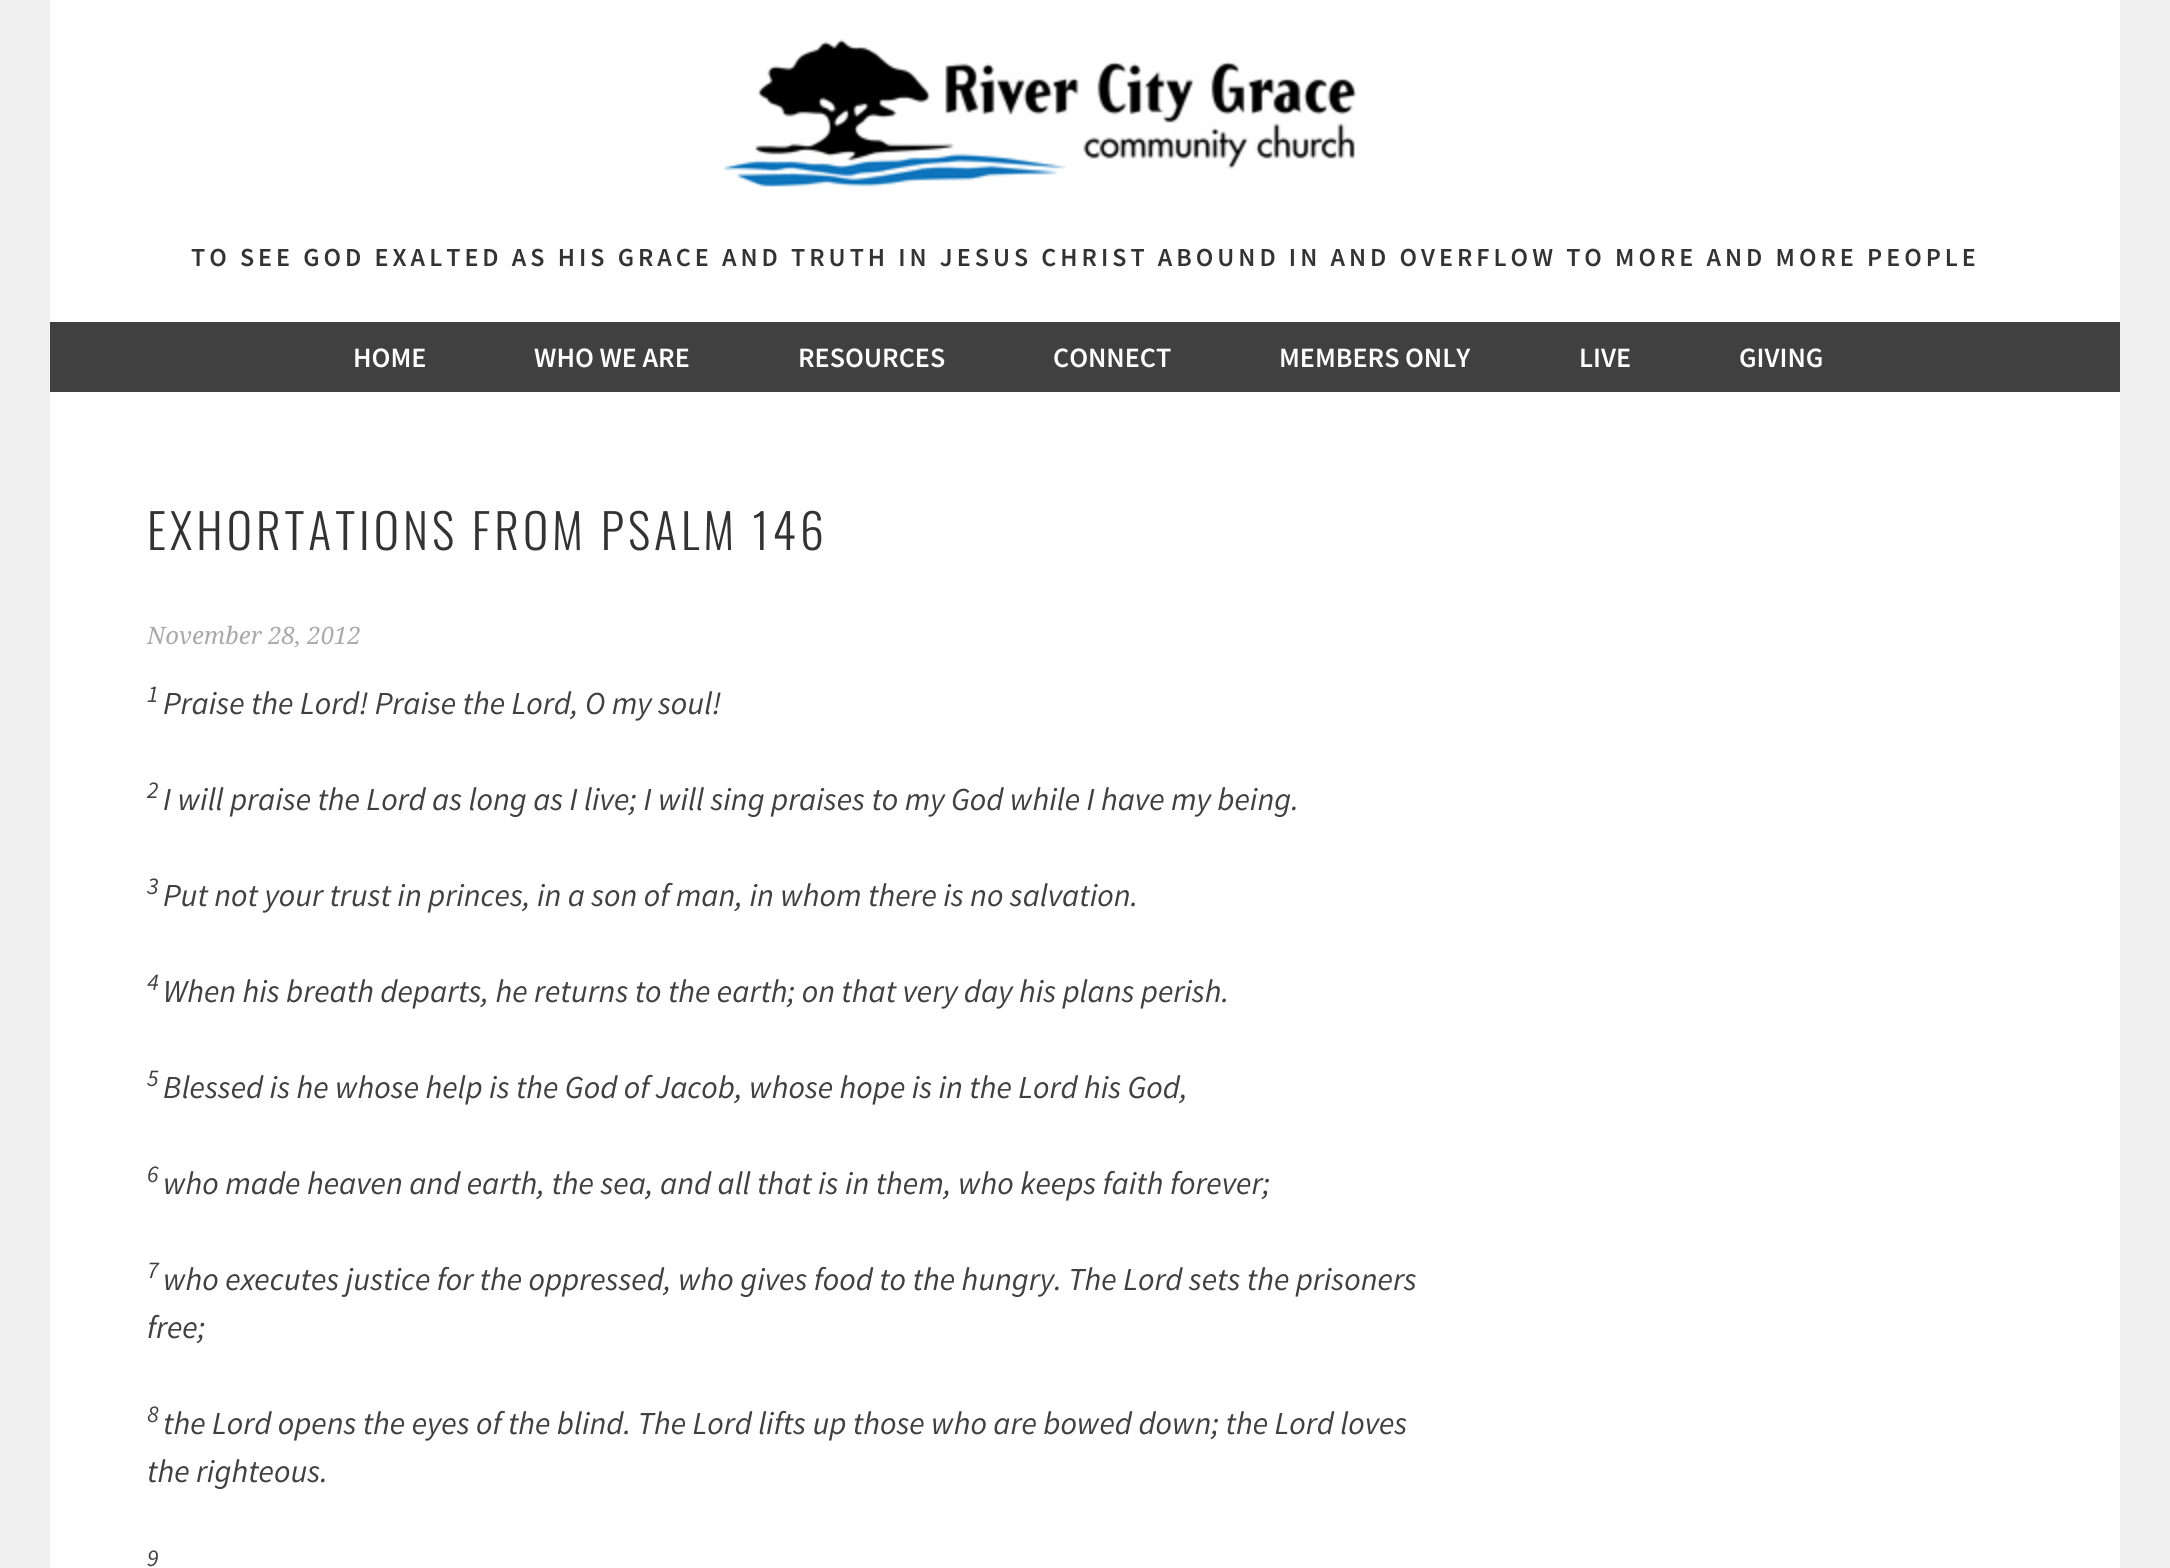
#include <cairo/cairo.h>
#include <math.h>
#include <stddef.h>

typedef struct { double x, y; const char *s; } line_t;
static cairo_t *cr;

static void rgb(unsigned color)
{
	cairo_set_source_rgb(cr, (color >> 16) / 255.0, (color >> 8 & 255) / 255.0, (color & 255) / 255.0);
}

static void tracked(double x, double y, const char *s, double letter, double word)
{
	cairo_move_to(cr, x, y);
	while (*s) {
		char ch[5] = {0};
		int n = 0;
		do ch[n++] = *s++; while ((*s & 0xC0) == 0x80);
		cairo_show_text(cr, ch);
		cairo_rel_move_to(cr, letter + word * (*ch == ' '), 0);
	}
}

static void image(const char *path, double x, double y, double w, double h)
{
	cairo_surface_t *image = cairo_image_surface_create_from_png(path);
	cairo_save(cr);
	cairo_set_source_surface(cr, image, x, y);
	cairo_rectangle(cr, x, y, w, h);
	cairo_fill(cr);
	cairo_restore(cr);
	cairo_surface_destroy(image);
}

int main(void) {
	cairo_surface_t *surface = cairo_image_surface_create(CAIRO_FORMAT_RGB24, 2170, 1568);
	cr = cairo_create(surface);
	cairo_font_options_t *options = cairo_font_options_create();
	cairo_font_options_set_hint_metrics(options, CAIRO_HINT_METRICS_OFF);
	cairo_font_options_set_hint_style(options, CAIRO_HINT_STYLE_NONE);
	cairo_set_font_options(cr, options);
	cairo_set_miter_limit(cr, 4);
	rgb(0xf0f0f0);
	cairo_paint(cr);
	rgb(0xffffff);
	cairo_rectangle(cr, 50, 0, 2070, 322);
	cairo_fill(cr);
	image("img/1.png", 722, 39, 635, 149);
	rgb(0x404040);
	cairo_rectangle(cr, 50, 322, 2070, 70);
	cairo_fill(cr);
	rgb(0xffffff);
	cairo_rectangle(cr, 50, 392, 2070, 1176);
	cairo_fill(cr);
	cairo_select_font_face(cr, "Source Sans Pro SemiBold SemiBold", CAIRO_FONT_SLANT_NORMAL, CAIRO_FONT_WEIGHT_NORMAL);
	cairo_set_font_size(cr, 26);
	rgb(0x333333);
	tracked(191, 266, "TO SEE GOD EXALTED AS HIS GRACE AND TRUTH IN JESUS CHRIST ABOUND IN AND OVERFLOW TO MORE AND MORE PEOPLE", 4, 0);
	cairo_set_font_size(cr, 28);
	rgb(0xffffff);
	{
		static const line_t items[] = {
			{353, 367, "HOME"},
			{534, 367, "WHO WE ARE"},
			{798, 367, "RESOURCES"},
			{1053, 367, "CONNECT"},
			{1279, 367, "MEMBERS ONLY"},
			{1579, 367, "LIVE"},
			{1739, 367, "GIVING"},
		};
		for (size_t i = 0; i < sizeof items / sizeof *items; i++) {
			cairo_move_to(cr, items[i].x, items[i].y);
			cairo_show_text(cr, items[i].s);
		}
	}
	cairo_select_font_face(cr, "Oswald Light", CAIRO_FONT_SLANT_NORMAL, CAIRO_FONT_WEIGHT_NORMAL);
	cairo_set_font_size(cr, 48);
	rgb(0x333333);
	tracked(147, 550, "EXHORTATIONS FROM PSALM 146", 4, 0);
	cairo_select_font_face(cr, "Droid Serif", CAIRO_FONT_SLANT_ITALIC, CAIRO_FONT_WEIGHT_NORMAL);
	cairo_set_font_size(cr, 24);
	rgb(0xaaaaaa);
	cairo_move_to(cr, 147, 644);
	cairo_show_text(cr, "November 28, 2012");
	cairo_select_font_face(cr, "Source Sans Pro", CAIRO_FONT_SLANT_ITALIC, CAIRO_FONT_WEIGHT_NORMAL);
	rgb(0x404040);
	cairo_move_to(cr, 147, 702);
	cairo_show_text(cr, "1");
	cairo_set_font_size(cr, 32);
	cairo_move_to(cr, 163, 714);
	cairo_show_text(cr, "Praise the Lord! Praise the Lord, O my soul!");
	cairo_set_font_size(cr, 24);
	cairo_move_to(cr, 147, 798);
	cairo_show_text(cr, "2");
	cairo_set_font_size(cr, 32);
	cairo_move_to(cr, 163, 810);
	cairo_show_text(cr, "I will praise the Lord as long as I live; I will sing praises to my God while I have my being.");
	cairo_set_font_size(cr, 24);
	cairo_move_to(cr, 147, 894);
	cairo_show_text(cr, "3");
	cairo_set_font_size(cr, 32);
	cairo_move_to(cr, 163, 906);
	cairo_show_text(cr, "Put not your trust in princes, in a son of man, in whom there is no salvation.");
	cairo_set_font_size(cr, 24);
	cairo_move_to(cr, 147, 990);
	cairo_show_text(cr, "4");
	cairo_set_font_size(cr, 32);
	cairo_move_to(cr, 163, 1002);
	cairo_show_text(cr, "When his breath departs, he returns to the earth; on that very day his plans perish.");
	cairo_set_font_size(cr, 24);
	cairo_move_to(cr, 147, 1086);
	cairo_show_text(cr, "5");
	cairo_set_font_size(cr, 32);
	cairo_move_to(cr, 163, 1098);
	cairo_show_text(cr, "Blessed is he whose help is the God of Jacob, whose hope is in the Lord his God,");
	cairo_set_font_size(cr, 24);
	cairo_move_to(cr, 147, 1182);
	cairo_show_text(cr, "6");
	cairo_set_font_size(cr, 32);
	cairo_move_to(cr, 163, 1194);
	cairo_show_text(cr, "who made heaven and earth, the sea, and all that is in them, who keeps faith forever;");
	cairo_set_font_size(cr, 24);
	cairo_move_to(cr, 147, 1278);
	cairo_show_text(cr, "7");
	cairo_set_font_size(cr, 32);
	cairo_move_to(cr, 163, 1290);
	cairo_show_text(cr, "who executes justice for the oppressed, who gives food to the hungry. The Lord sets the prisoners");
	cairo_move_to(cr, 147, 1338);
	cairo_show_text(cr, "free;");
	cairo_set_font_size(cr, 24);
	cairo_move_to(cr, 147, 1422);
	cairo_show_text(cr, "8");
	cairo_set_font_size(cr, 32);
	cairo_move_to(cr, 163, 1434);
	cairo_show_text(cr, "the Lord opens the eyes of the blind. The Lord lifts up those who are bowed down; the Lord loves");
	cairo_move_to(cr, 147, 1482);
	cairo_show_text(cr, "the righteous.");
	cairo_set_font_size(cr, 24);
	cairo_move_to(cr, 147, 1566);
	cairo_show_text(cr, "9");
	cairo_surface_write_to_png(surface, "page.png");
	cairo_font_options_destroy(options);
	cairo_destroy(cr);
	cairo_surface_destroy(surface);
	return 0;
}
